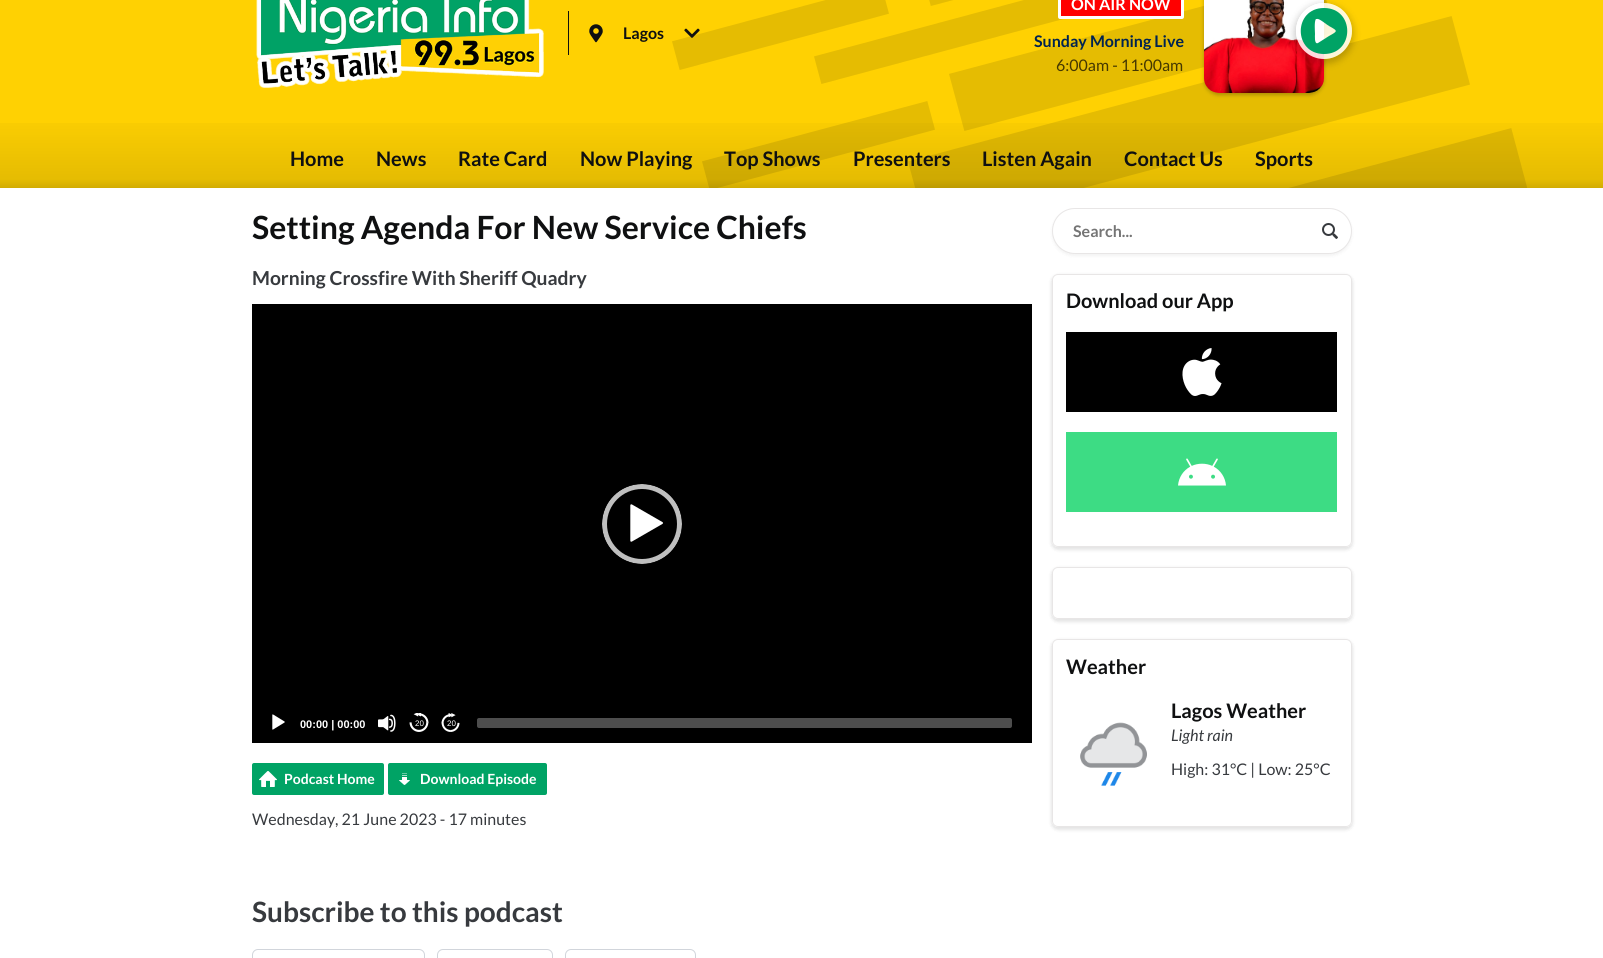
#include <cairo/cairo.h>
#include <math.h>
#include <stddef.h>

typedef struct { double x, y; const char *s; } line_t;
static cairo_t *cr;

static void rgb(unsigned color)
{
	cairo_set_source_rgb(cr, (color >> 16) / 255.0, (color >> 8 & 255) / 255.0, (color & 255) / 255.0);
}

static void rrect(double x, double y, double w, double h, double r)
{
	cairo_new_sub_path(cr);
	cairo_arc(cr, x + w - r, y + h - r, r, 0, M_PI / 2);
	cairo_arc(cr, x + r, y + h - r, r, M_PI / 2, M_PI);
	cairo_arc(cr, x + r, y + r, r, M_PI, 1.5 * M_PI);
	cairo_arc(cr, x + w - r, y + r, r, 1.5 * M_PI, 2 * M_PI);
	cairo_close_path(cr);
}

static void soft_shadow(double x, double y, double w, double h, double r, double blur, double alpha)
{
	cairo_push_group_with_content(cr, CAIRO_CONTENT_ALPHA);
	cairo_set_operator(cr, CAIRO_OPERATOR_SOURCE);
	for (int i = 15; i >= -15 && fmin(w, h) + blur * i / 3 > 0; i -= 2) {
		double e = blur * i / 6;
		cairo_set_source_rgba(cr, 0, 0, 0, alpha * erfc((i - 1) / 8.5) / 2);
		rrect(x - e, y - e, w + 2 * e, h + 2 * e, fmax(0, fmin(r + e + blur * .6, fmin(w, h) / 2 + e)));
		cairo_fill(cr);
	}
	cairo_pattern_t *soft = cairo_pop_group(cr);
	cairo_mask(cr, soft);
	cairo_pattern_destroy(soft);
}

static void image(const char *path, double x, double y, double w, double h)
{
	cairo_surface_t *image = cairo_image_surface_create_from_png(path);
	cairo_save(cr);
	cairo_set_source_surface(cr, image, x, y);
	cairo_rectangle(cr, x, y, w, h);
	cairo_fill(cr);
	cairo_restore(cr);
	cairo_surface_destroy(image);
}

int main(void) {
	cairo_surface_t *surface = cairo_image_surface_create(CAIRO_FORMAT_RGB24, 1603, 958);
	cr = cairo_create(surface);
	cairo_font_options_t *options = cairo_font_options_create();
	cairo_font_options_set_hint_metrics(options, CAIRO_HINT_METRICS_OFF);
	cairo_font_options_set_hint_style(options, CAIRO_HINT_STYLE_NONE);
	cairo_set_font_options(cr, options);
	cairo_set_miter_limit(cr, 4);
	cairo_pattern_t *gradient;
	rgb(0xffffff);
	cairo_paint(cr);
	rgb(0xffd102);
	cairo_rectangle(cr, 0, 0, 1603, 188);
	cairo_fill(cr);
	image("img/1.png", 672, 0, 855, 188);
	image("img/2.png", 256, 0, 288, 88);
	rgb(0x0f1011);
	cairo_rectangle(cr, 568, 11, 1, 44);
	cairo_fill(cr);
	image("img/3.png", 589, 24, 14, 19);
	image("img/4.png", 684, 28, 16, 10);
	rgb(0xff0000);
	rrect(1059.5, -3.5, 123, 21, 0.5);
	cairo_fill_preserve(cr);
	rgb(0xffffff);
	cairo_set_line_width(cr, 3);
	cairo_stroke(cr);
	rgb(0x000000);
	soft_shadow(1204, -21, 120, 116, 15, 2, 0.25);
	image("img/5.png", 1204, 0, 120, 93);
	cairo_save(cr);
	cairo_set_fill_rule(cr, CAIRO_FILL_RULE_EVEN_ODD);
	cairo_new_path(cr);
	cairo_move_to(cr, 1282, 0);
	cairo_line_to(cr, 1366, 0);
	cairo_line_to(cr, 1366, 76);
	cairo_line_to(cr, 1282, 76);
	cairo_close_path(cr);
	cairo_move_to(cr, 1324, 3);
	cairo_curve_to(cr, 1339.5, 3, 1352, 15.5, 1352, 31);
	cairo_curve_to(cr, 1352, 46.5, 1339.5, 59, 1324, 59);
	cairo_curve_to(cr, 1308.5, 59, 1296, 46.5, 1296, 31);
	cairo_curve_to(cr, 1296, 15.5, 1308.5, 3, 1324, 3);
	cairo_close_path(cr);
	cairo_clip(cr);
	soft_shadow(1294, 4, 60, 60, 30, 3.5, 0.2);
	cairo_restore(cr);
	cairo_set_source_rgba(cr, 1, 1, 1, 0.85);
	cairo_arc(cr, 1324, 31, 28, 0, 2 * M_PI);
	cairo_fill(cr);
	rgb(0x00a365);
	cairo_new_path(cr);
	cairo_move_to(cr, 1324, 54);
	cairo_curve_to(cr, 1355, 54, 1355, 8, 1324, 8);
	cairo_curve_to(cr, 1293, 8, 1293, 54, 1324, 54);
	cairo_close_path(cr);
	cairo_move_to(cr, 1318, 43);
	cairo_curve_to(cr, 1314, 45, 1315, 35, 1315, 34);
	cairo_curve_to(cr, 1315, 32, 1314, 21, 1316, 19);
	cairo_line_to(cr, 1317, 19);
	cairo_curve_to(cr, 1319, 18, 1327, 25, 1329, 26);
	cairo_curve_to(cr, 1338, 31, 1338, 31, 1329, 36);
	cairo_close_path(cr);
	cairo_fill(cr);
	gradient = cairo_pattern_create_linear(802, 108, 802, 188);
	cairo_pattern_add_color_stop_rgba(gradient, 0, 0, 0, 0, 0);
	cairo_pattern_add_color_stop_rgba(gradient, 0.89, 0, 0, 0, 0.1);
	cairo_pattern_add_color_stop_rgba(gradient, 1, 0, 0, 0, 0.18);
	cairo_set_source(cr, gradient);
	cairo_pattern_destroy(gradient);
	cairo_rectangle(cr, 0, 123, 1603, 65);
	cairo_fill(cr);
	rgb(0x000000);
	cairo_rectangle(cr, 252, 304, 780, 439);
	cairo_fill(cr);
	image("img/6.png", 602, 484, 80, 80);
	image("img/7.png", 272, 714, 13, 16);
	image("img/8.png", 378, 714, 18, 18);
	image("img/9.png", 409, 713, 20, 19);
	image("img/10.png", 441, 713, 19, 19);
	rgb(0x4d4d4d);
	rrect(477, 718, 535, 10, 2);
	cairo_fill(cr);
	rgb(0x00a365);
	rrect(252, 763, 132, 32, 2);
	cairo_fill(cr);
	image("img/11.png", 259, 771, 18, 16);
	rrect(388, 763, 159, 32, 2);
	cairo_fill(cr);
	image("img/12.png", 399, 773, 11, 12);
	rrect(252.5, 949.5, 172, 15, 5.5);
	rgb(0xd1d5db);
	cairo_set_line_width(cr, 1);
	cairo_stroke(cr);
	rrect(437.5, 949.5, 115, 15, 5.5);
	cairo_stroke(cr);
	rrect(565.5, 949.5, 130, 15, 5.5);
	cairo_stroke(cr);
	rgb(0x000000);
	soft_shadow(1052, 210, 300, 46, 23, 1.5, 0.05);
	rgb(0xffffff);
	rrect(1052.5, 208.5, 299, 45, 22.5);
	cairo_fill_preserve(cr);
	rgb(0xe8e6e6);
	cairo_stroke(cr);
	image("img/13.png", 1322, 223, 16, 16);
	cairo_save(cr);
	cairo_set_fill_rule(cr, CAIRO_FILL_RULE_EVEN_ODD);
	cairo_new_path(cr);
	cairo_move_to(cr, 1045, 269);
	cairo_line_to(cr, 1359, 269);
	cairo_line_to(cr, 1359, 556);
	cairo_line_to(cr, 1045, 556);
	cairo_close_path(cr);
	cairo_move_to(cr, 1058, 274);
	cairo_line_to(cr, 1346, 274);
	cairo_curve_to(cr, 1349.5, 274, 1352, 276.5, 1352, 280);
	cairo_line_to(cr, 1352, 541);
	cairo_curve_to(cr, 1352, 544.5, 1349.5, 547, 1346, 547);
	cairo_line_to(cr, 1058, 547);
	cairo_curve_to(cr, 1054.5, 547, 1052, 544.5, 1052, 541);
	cairo_line_to(cr, 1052, 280);
	cairo_curve_to(cr, 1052, 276.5, 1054.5, 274, 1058, 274);
	cairo_close_path(cr);
	cairo_clip(cr);
	rgb(0x000000);
	soft_shadow(1051, 275, 302, 275, 7, 1.5, 0.1);
	cairo_restore(cr);
	rrect(1052.5, 274.5, 299, 272, 5.5);
	cairo_stroke(cr);
	rgb(0x000000);
	cairo_rectangle(cr, 1066, 332, 271, 80);
	cairo_fill(cr);
	image("img/14.png", 1182, 348, 40, 48);
	rgb(0x3ddc84);
	cairo_rectangle(cr, 1066, 432, 271, 80);
	cairo_fill(cr);
	image("img/15.png", 1178, 458, 48, 28);
	cairo_save(cr);
	cairo_set_fill_rule(cr, CAIRO_FILL_RULE_EVEN_ODD);
	cairo_new_path(cr);
	cairo_move_to(cr, 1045, 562);
	cairo_line_to(cr, 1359, 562);
	cairo_line_to(cr, 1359, 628);
	cairo_line_to(cr, 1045, 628);
	cairo_close_path(cr);
	cairo_move_to(cr, 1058, 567);
	cairo_line_to(cr, 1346, 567);
	cairo_curve_to(cr, 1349.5, 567, 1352, 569.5, 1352, 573);
	cairo_line_to(cr, 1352, 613);
	cairo_curve_to(cr, 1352, 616.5, 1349.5, 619, 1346, 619);
	cairo_line_to(cr, 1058, 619);
	cairo_curve_to(cr, 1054.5, 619, 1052, 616.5, 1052, 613);
	cairo_line_to(cr, 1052, 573);
	cairo_curve_to(cr, 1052, 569.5, 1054.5, 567, 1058, 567);
	cairo_close_path(cr);
	cairo_clip(cr);
	rgb(0x000000);
	soft_shadow(1051, 568, 302, 54, 7, 1.5, 0.1);
	cairo_restore(cr);
	rrect(1052.5, 567.5, 299, 51, 5.5);
	rgb(0xe8e6e6);
	cairo_stroke(cr);
	cairo_save(cr);
	cairo_set_fill_rule(cr, CAIRO_FILL_RULE_EVEN_ODD);
	cairo_new_path(cr);
	cairo_move_to(cr, 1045, 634);
	cairo_line_to(cr, 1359, 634);
	cairo_line_to(cr, 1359, 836);
	cairo_line_to(cr, 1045, 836);
	cairo_close_path(cr);
	cairo_move_to(cr, 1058, 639);
	cairo_line_to(cr, 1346, 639);
	cairo_curve_to(cr, 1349.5, 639, 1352, 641.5, 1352, 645);
	cairo_line_to(cr, 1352, 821);
	cairo_curve_to(cr, 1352, 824.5, 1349.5, 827, 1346, 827);
	cairo_line_to(cr, 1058, 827);
	cairo_curve_to(cr, 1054.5, 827, 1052, 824.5, 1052, 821);
	cairo_line_to(cr, 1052, 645);
	cairo_curve_to(cr, 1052, 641.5, 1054.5, 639, 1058, 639);
	cairo_close_path(cr);
	cairo_clip(cr);
	rgb(0x000000);
	soft_shadow(1051, 640, 302, 190, 7, 1.5, 0.1);
	cairo_restore(cr);
	rrect(1052.5, 639.5, 299, 187, 5.5);
	cairo_stroke(cr);
	image("img/16.png", 1080, 722, 67, 64);
	cairo_select_font_face(cr, "Lato", CAIRO_FONT_SLANT_NORMAL, CAIRO_FONT_WEIGHT_BOLD);
	cairo_set_font_size(cr, 16);
	rgb(0x0f1011);
	cairo_move_to(cr, 623, 39);
	cairo_show_text(cr, "Lagos");
	rgb(0xffffff);
	cairo_move_to(cr, 1071, 10);
	cairo_show_text(cr, "ON AIR NOW");
	rgb(0x002351);
	cairo_move_to(cr, 1034, 47);
	cairo_show_text(cr, "Sunday Morning Live");
	cairo_select_font_face(cr, "Lato", CAIRO_FONT_SLANT_NORMAL, CAIRO_FONT_WEIGHT_NORMAL);
	rgb(0x453801);
	cairo_move_to(cr, 1056, 71);
	cairo_show_text(cr, "6:00am - 11:00am");
	cairo_select_font_face(cr, "Lato", CAIRO_FONT_SLANT_NORMAL, CAIRO_FONT_WEIGHT_BOLD);
	cairo_set_font_size(cr, 20);
	rgb(0x0f1011);
	{
		static const line_t items[] = {
			{290, 166, "Home"},
			{376, 166, "News"},
			{458, 166, "Rate Card"},
			{580, 166, "Now Playing"},
			{724, 166, "Top Shows"},
			{853, 166, "Presenters"},
			{982, 166, "Listen Again"},
			{1124, 166, "Contact Us"},
			{1255, 166, "Sports"},
		};
		for (size_t i = 0; i < sizeof items / sizeof *items; i++) {
			cairo_move_to(cr, items[i].x, items[i].y);
			cairo_show_text(cr, items[i].s);
		}
	}
	cairo_set_font_size(cr, 32);
	cairo_move_to(cr, 252, 239);
	cairo_show_text(cr, "Setting Agenda For New Service Chiefs");
	cairo_set_font_size(cr, 19.25);
	rgb(0x373a3e);
	cairo_move_to(cr, 252, 285);
	cairo_show_text(cr, "Morning Crossfire With Sheriff Quadry");
	cairo_select_font_face(cr, "Liberation Sans", CAIRO_FONT_SLANT_NORMAL, CAIRO_FONT_WEIGHT_BOLD);
	cairo_set_font_size(cr, 11);
	rgb(0xffffff);
	cairo_move_to(cr, 300, 728);
	cairo_show_text(cr, "00:00 | 00:00");
	cairo_select_font_face(cr, "Liberation Sans", CAIRO_FONT_SLANT_NORMAL, CAIRO_FONT_WEIGHT_NORMAL);
	cairo_set_font_size(cr, 8);
	cairo_move_to(cr, 415, 726);
	cairo_show_text(cr, "20");
	cairo_move_to(cr, 447, 726);
	cairo_show_text(cr, "20");
	cairo_select_font_face(cr, "Lato", CAIRO_FONT_SLANT_NORMAL, CAIRO_FONT_WEIGHT_BOLD);
	cairo_set_font_size(cr, 14);
	cairo_move_to(cr, 284, 784);
	cairo_show_text(cr, "Podcast Home");
	cairo_move_to(cr, 420, 784);
	cairo_show_text(cr, "Download Episode");
	cairo_select_font_face(cr, "Lato", CAIRO_FONT_SLANT_NORMAL, CAIRO_FONT_WEIGHT_NORMAL);
	cairo_set_font_size(cr, 16);
	rgb(0x373a3e);
	cairo_move_to(cr, 252, 825);
	cairo_show_text(cr, "Wednesday, 21 June 2023 - 17 minutes");
	cairo_select_font_face(cr, "Lato", CAIRO_FONT_SLANT_NORMAL, CAIRO_FONT_WEIGHT_BOLD);
	cairo_set_font_size(cr, 28);
	cairo_move_to(cr, 252, 922);
	cairo_show_text(cr, "Subscribe to this podcast");
	cairo_set_font_size(cr, 16);
	rgb(0x757575);
	cairo_move_to(cr, 1073, 237);
	cairo_show_text(cr, "Search...");
	cairo_set_font_size(cr, 20);
	rgb(0x0f1011);
	{
		static const line_t items[] = {
			{1066, 308, "Download our App"},
			{1066, 674, "Weather"},
			{1171, 718, "Lagos Weather"},
		};
		for (size_t i = 0; i < sizeof items / sizeof *items; i++) {
			cairo_move_to(cr, items[i].x, items[i].y);
			cairo_show_text(cr, items[i].s);
		}
	}
	cairo_select_font_face(cr, "Lato", CAIRO_FONT_SLANT_ITALIC, CAIRO_FONT_WEIGHT_NORMAL);
	cairo_set_font_size(cr, 16);
	rgb(0x373a3e);
	cairo_move_to(cr, 1171, 741);
	cairo_show_text(cr, "Light rain");
	cairo_select_font_face(cr, "Lato", CAIRO_FONT_SLANT_NORMAL, CAIRO_FONT_WEIGHT_NORMAL);
	cairo_move_to(cr, 1171, 775);
	cairo_show_text(cr, "High: 31°C | Low: 25°C");
	cairo_surface_write_to_png(surface, "page.png");
	cairo_font_options_destroy(options);
	cairo_destroy(cr);
	cairo_surface_destroy(surface);
	return 0;
}
